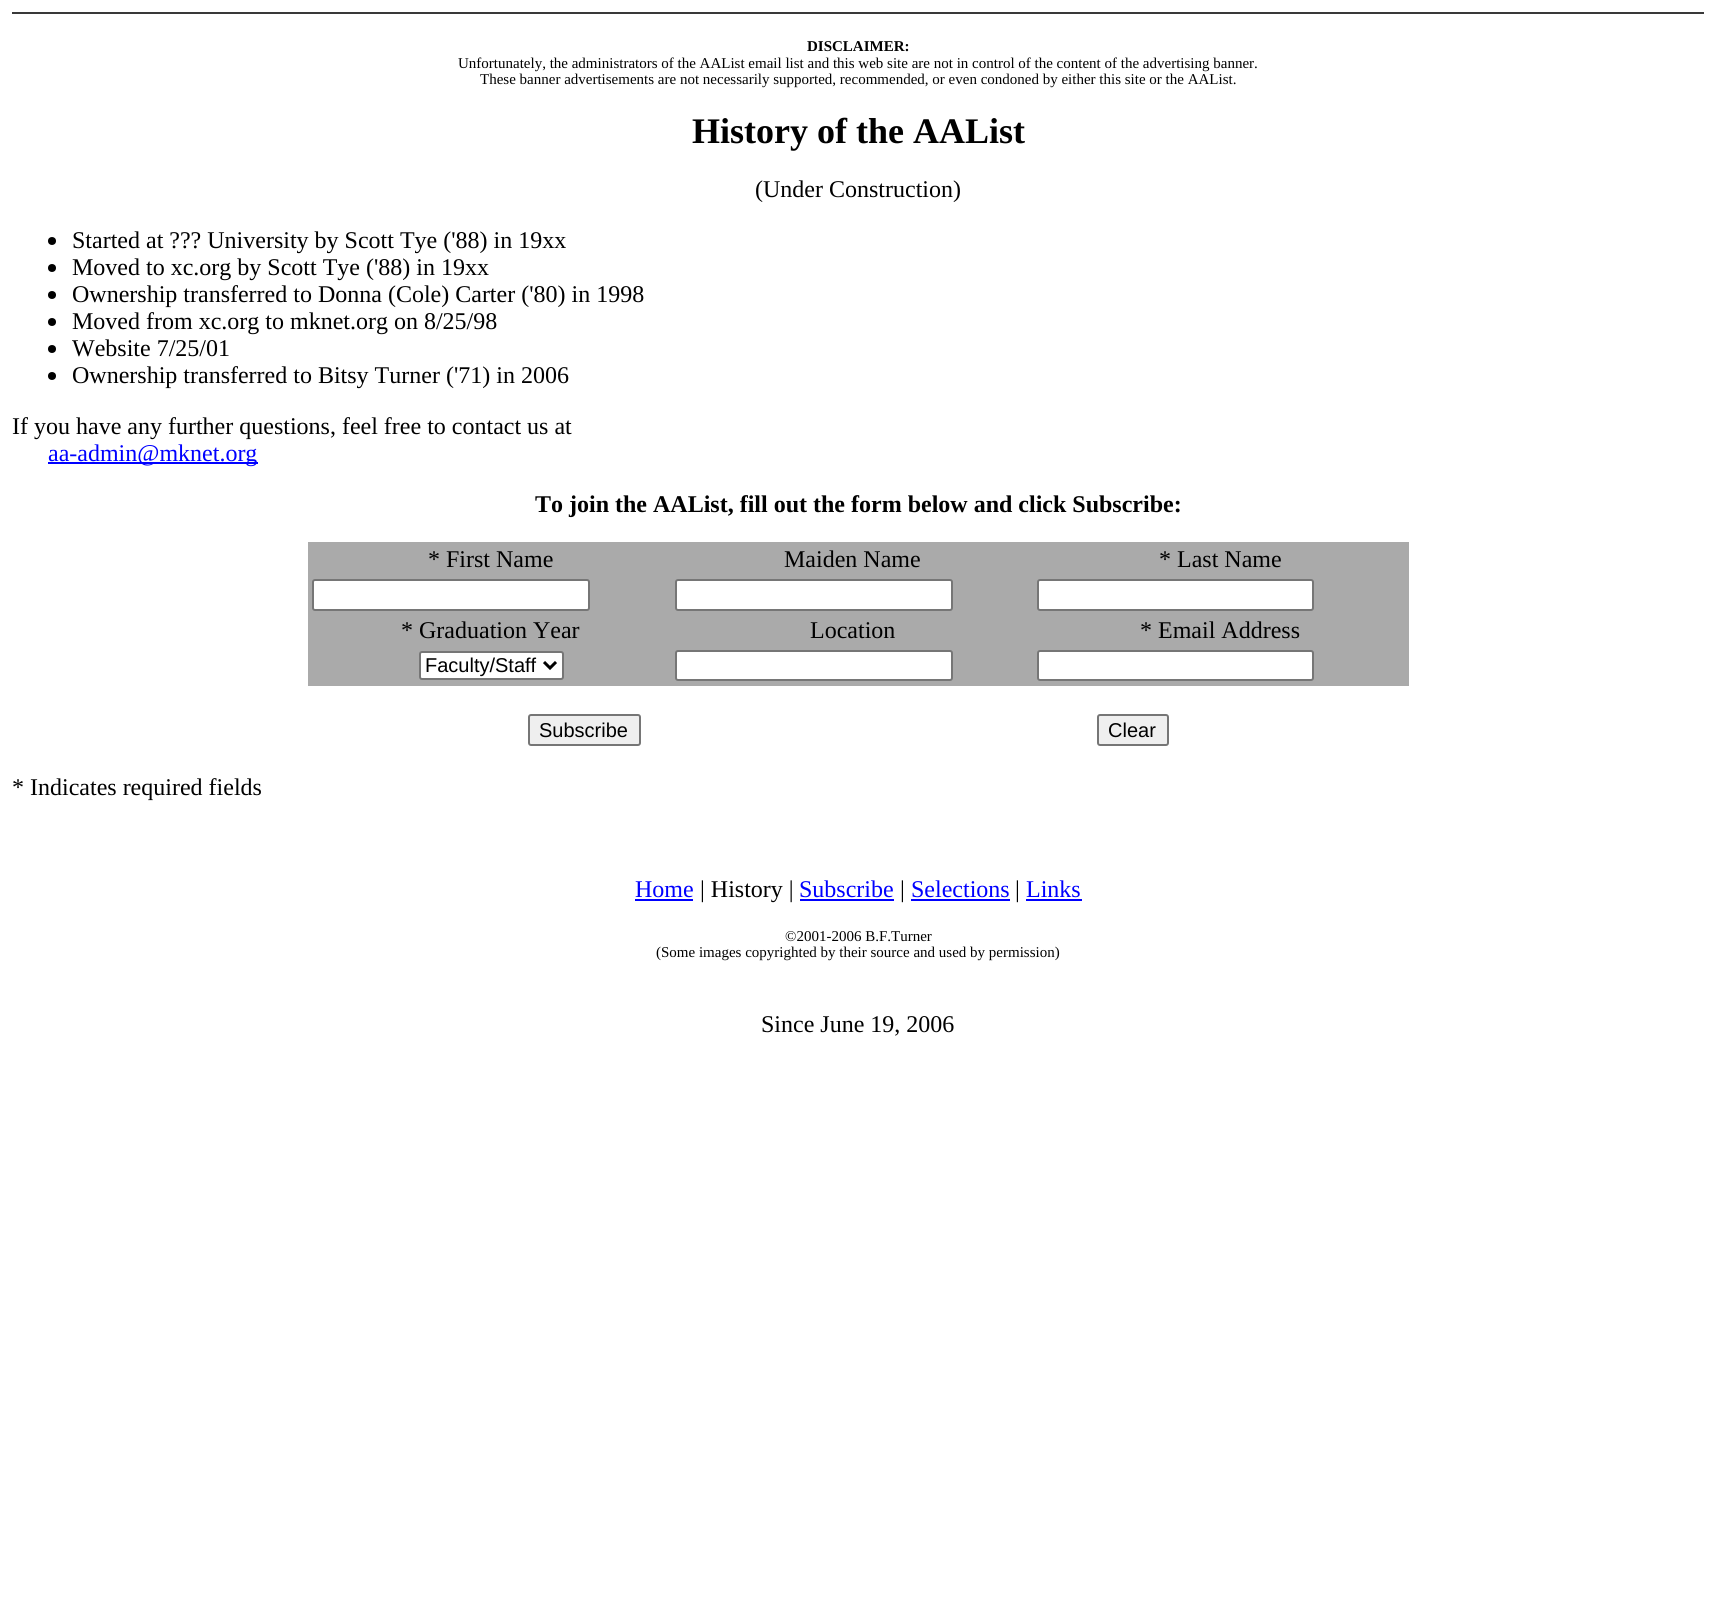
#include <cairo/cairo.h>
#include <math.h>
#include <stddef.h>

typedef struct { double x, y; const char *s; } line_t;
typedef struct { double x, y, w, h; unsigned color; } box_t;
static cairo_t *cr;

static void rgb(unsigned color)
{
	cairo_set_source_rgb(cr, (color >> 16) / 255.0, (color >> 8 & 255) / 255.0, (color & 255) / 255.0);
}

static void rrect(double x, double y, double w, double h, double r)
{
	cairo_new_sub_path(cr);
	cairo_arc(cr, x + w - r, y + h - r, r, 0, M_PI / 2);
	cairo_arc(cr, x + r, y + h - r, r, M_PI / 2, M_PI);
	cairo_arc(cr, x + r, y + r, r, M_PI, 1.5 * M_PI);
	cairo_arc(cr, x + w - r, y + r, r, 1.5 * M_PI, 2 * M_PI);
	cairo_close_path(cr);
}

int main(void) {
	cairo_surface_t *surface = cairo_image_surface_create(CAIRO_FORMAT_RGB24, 1715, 1624);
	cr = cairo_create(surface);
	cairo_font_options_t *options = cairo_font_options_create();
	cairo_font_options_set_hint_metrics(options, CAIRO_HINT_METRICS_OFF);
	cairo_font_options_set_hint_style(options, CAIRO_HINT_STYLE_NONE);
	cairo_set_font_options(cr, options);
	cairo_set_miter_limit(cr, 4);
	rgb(0xffffff);
	cairo_paint(cr);
	rgb(0x393939);
	cairo_rectangle(cr, 12, 12, 1692, 2);
	cairo_fill(cr);
	rgb(0x000000);
	cairo_arc(cr, 52, 241, 4, 0, 2 * M_PI);
	cairo_fill(cr);
	cairo_arc(cr, 52, 268, 4, 0, 2 * M_PI);
	cairo_fill(cr);
	cairo_arc(cr, 52, 295, 4, 0, 2 * M_PI);
	cairo_fill(cr);
	cairo_arc(cr, 52, 322, 4, 0, 2 * M_PI);
	cairo_fill(cr);
	cairo_arc(cr, 52, 349, 4, 0, 2 * M_PI);
	cairo_fill(cr);
	cairo_arc(cr, 52, 376, 4, 0, 2 * M_PI);
	cairo_fill(cr);
	rgb(0x0000ff);
	cairo_rectangle(cr, 48, 462, 210, 2);
	cairo_fill(cr);
	rgb(0xaaaaaa);
	cairo_rectangle(cr, 308, 542, 1101, 144);
	cairo_fill(cr);
	rgb(0xffffff);
	rrect(313, 580, 276, 30, 2);
	cairo_fill_preserve(cr);
	rgb(0x767676);
	cairo_stroke(cr);
	rgb(0xffffff);
	rrect(676, 580, 276, 30, 2);
	cairo_fill_preserve(cr);
	rgb(0x767676);
	cairo_stroke(cr);
	rgb(0xffffff);
	rrect(1038, 580, 275, 30, 2);
	cairo_fill_preserve(cr);
	rgb(0x767676);
	cairo_stroke(cr);
	rgb(0xffffff);
	rrect(420, 652, 143, 27, 2);
	cairo_fill_preserve(cr);
	rgb(0x767676);
	cairo_stroke(cr);
	cairo_new_path(cr);
	cairo_move_to(cr, 544, 662);
	cairo_line_to(cr, 550, 668);
	cairo_line_to(cr, 556, 662);
	rgb(0x000000);
	cairo_set_line_width(cr, 3);
	cairo_stroke(cr);
	rgb(0xffffff);
	rrect(676, 651, 276, 29, 2);
	cairo_fill_preserve(cr);
	rgb(0x767676);
	cairo_set_line_width(cr, 2);
	cairo_stroke(cr);
	rgb(0xffffff);
	rrect(1038, 651, 275, 29, 2);
	cairo_fill_preserve(cr);
	rgb(0x767676);
	cairo_stroke(cr);
	rgb(0xefefef);
	rrect(529, 715, 111, 30, 2);
	cairo_fill_preserve(cr);
	rgb(0x767676);
	cairo_stroke(cr);
	rgb(0xefefef);
	rrect(1098, 715, 70, 30, 2);
	cairo_fill_preserve(cr);
	rgb(0x767676);
	cairo_stroke(cr);
	{
		static const box_t items[] = {
			{635, 899, 58, 2, 0x0000ff},
			{800, 899, 94, 2, 0x0000ff},
			{911, 899, 99, 2, 0x0000ff},
			{1026, 899, 56, 2, 0x0000ff},
		};
		for (size_t i = 0; i < sizeof items / sizeof *items; i++) {
			rgb(items[i].color);
			cairo_rectangle(cr, items[i].x, items[i].y, items[i].w, items[i].h);
			cairo_fill(cr);
		}
	}
	cairo_select_font_face(cr, "Liberation Serif", CAIRO_FONT_SLANT_NORMAL, CAIRO_FONT_WEIGHT_BOLD);
	cairo_set_font_size(cr, 15);
	rgb(0x000000);
	cairo_move_to(cr, 807, 51);
	cairo_show_text(cr, "DISCLAIMER:");
	cairo_select_font_face(cr, "Liberation Serif", CAIRO_FONT_SLANT_NORMAL, CAIRO_FONT_WEIGHT_NORMAL);
	cairo_move_to(cr, 458, 68);
	cairo_show_text(cr, "Unfortunately, the administrators of the AAList email list and this web site are not in control of the content of the advertising banner.");
	cairo_move_to(cr, 480, 84);
	cairo_show_text(cr, "These banner advertisements are not necessarily supported, recommended, or even condoned by either this site or the AAList.");
	cairo_select_font_face(cr, "Liberation Serif", CAIRO_FONT_SLANT_NORMAL, CAIRO_FONT_WEIGHT_BOLD);
	cairo_set_font_size(cr, 36);
	cairo_move_to(cr, 692, 143);
	cairo_show_text(cr, "History of the AAList");
	cairo_select_font_face(cr, "Liberation Serif", CAIRO_FONT_SLANT_NORMAL, CAIRO_FONT_WEIGHT_NORMAL);
	cairo_set_font_size(cr, 24);
	{
		static const line_t items[] = {
			{755, 197, "(Under Construction)"},
			{72, 248, "Started at ?\077? University by Scott Tye ('88) in 19xx"},
			{72, 275, "Moved to xc.org by Scott Tye ('88) in 19xx"},
			{72, 302, "Ownership transferred to Donna (Cole) Carter ('80) in 1998"},
			{72, 329, "Moved from xc.org to mknet.org on 8/25/98"},
			{72, 356, "Website 7/25/01"},
			{72, 383, "Ownership transferred to Bitsy Turner ('71) in 2006"},
			{12, 434, "If you have any further questions, feel free to contact us at"},
		};
		for (size_t i = 0; i < sizeof items / sizeof *items; i++) {
			cairo_move_to(cr, items[i].x, items[i].y);
			cairo_show_text(cr, items[i].s);
		}
	}
	rgb(0x0000ff);
	cairo_move_to(cr, 48, 461);
	cairo_show_text(cr, "aa-admin@mknet.org");
	cairo_select_font_face(cr, "Liberation Serif", CAIRO_FONT_SLANT_NORMAL, CAIRO_FONT_WEIGHT_BOLD);
	rgb(0x000000);
	cairo_move_to(cr, 535, 512);
	cairo_show_text(cr, "To join the AAList, fill out the form below and click Subscribe:");
	cairo_select_font_face(cr, "Liberation Serif", CAIRO_FONT_SLANT_NORMAL, CAIRO_FONT_WEIGHT_NORMAL);
	{
		static const line_t items[] = {
			{428, 567, "* First Name"},
			{784, 567, "Maiden Name"},
			{1159, 567, "* Last Name"},
			{401, 638, "* Graduation Year"},
			{810, 638, "Location"},
			{1140, 638, "* Email Address"},
		};
		for (size_t i = 0; i < sizeof items / sizeof *items; i++) {
			cairo_move_to(cr, items[i].x, items[i].y);
			cairo_show_text(cr, items[i].s);
		}
	}
	cairo_select_font_face(cr, "Liberation Sans", CAIRO_FONT_SLANT_NORMAL, CAIRO_FONT_WEIGHT_NORMAL);
	cairo_set_font_size(cr, 20);
	{
		static const line_t items[] = {
			{425, 672, "Faculty/Staff"},
			{539, 737, "Subscribe"},
			{1108, 737, "Clear"},
		};
		for (size_t i = 0; i < sizeof items / sizeof *items; i++) {
			cairo_move_to(cr, items[i].x, items[i].y);
			cairo_show_text(cr, items[i].s);
		}
	}
	cairo_select_font_face(cr, "Liberation Serif", CAIRO_FONT_SLANT_NORMAL, CAIRO_FONT_WEIGHT_NORMAL);
	cairo_set_font_size(cr, 24);
	cairo_move_to(cr, 12, 795);
	cairo_show_text(cr, "* Indicates required fields");
	rgb(0x0000ff);
	cairo_move_to(cr, 635, 897);
	cairo_show_text(cr, "Home");
	rgb(0x000000);
	cairo_move_to(cr, 700, 897);
	cairo_show_text(cr, "| History |");
	rgb(0x0000ff);
	cairo_move_to(cr, 799, 897);
	cairo_show_text(cr, "Subscribe");
	rgb(0x000000);
	cairo_move_to(cr, 900, 897);
	cairo_show_text(cr, "|");
	rgb(0x0000ff);
	cairo_move_to(cr, 911, 897);
	cairo_show_text(cr, "Selections");
	rgb(0x000000);
	cairo_move_to(cr, 1015, 897);
	cairo_show_text(cr, "|");
	rgb(0x0000ff);
	cairo_move_to(cr, 1026, 897);
	cairo_show_text(cr, "Links");
	cairo_set_font_size(cr, 15);
	rgb(0x000000);
	cairo_move_to(cr, 785, 941);
	cairo_show_text(cr, "©2001-2006 B.F.Turner");
	cairo_move_to(cr, 656, 957);
	cairo_show_text(cr, "(Some images copyrighted by their source and used by permission)");
	cairo_set_font_size(cr, 24);
	cairo_move_to(cr, 761, 1032);
	cairo_show_text(cr, "Since June 19, 2006");
	cairo_surface_write_to_png(surface, "page.png");
	cairo_font_options_destroy(options);
	cairo_destroy(cr);
	cairo_surface_destroy(surface);
	return 0;
}
